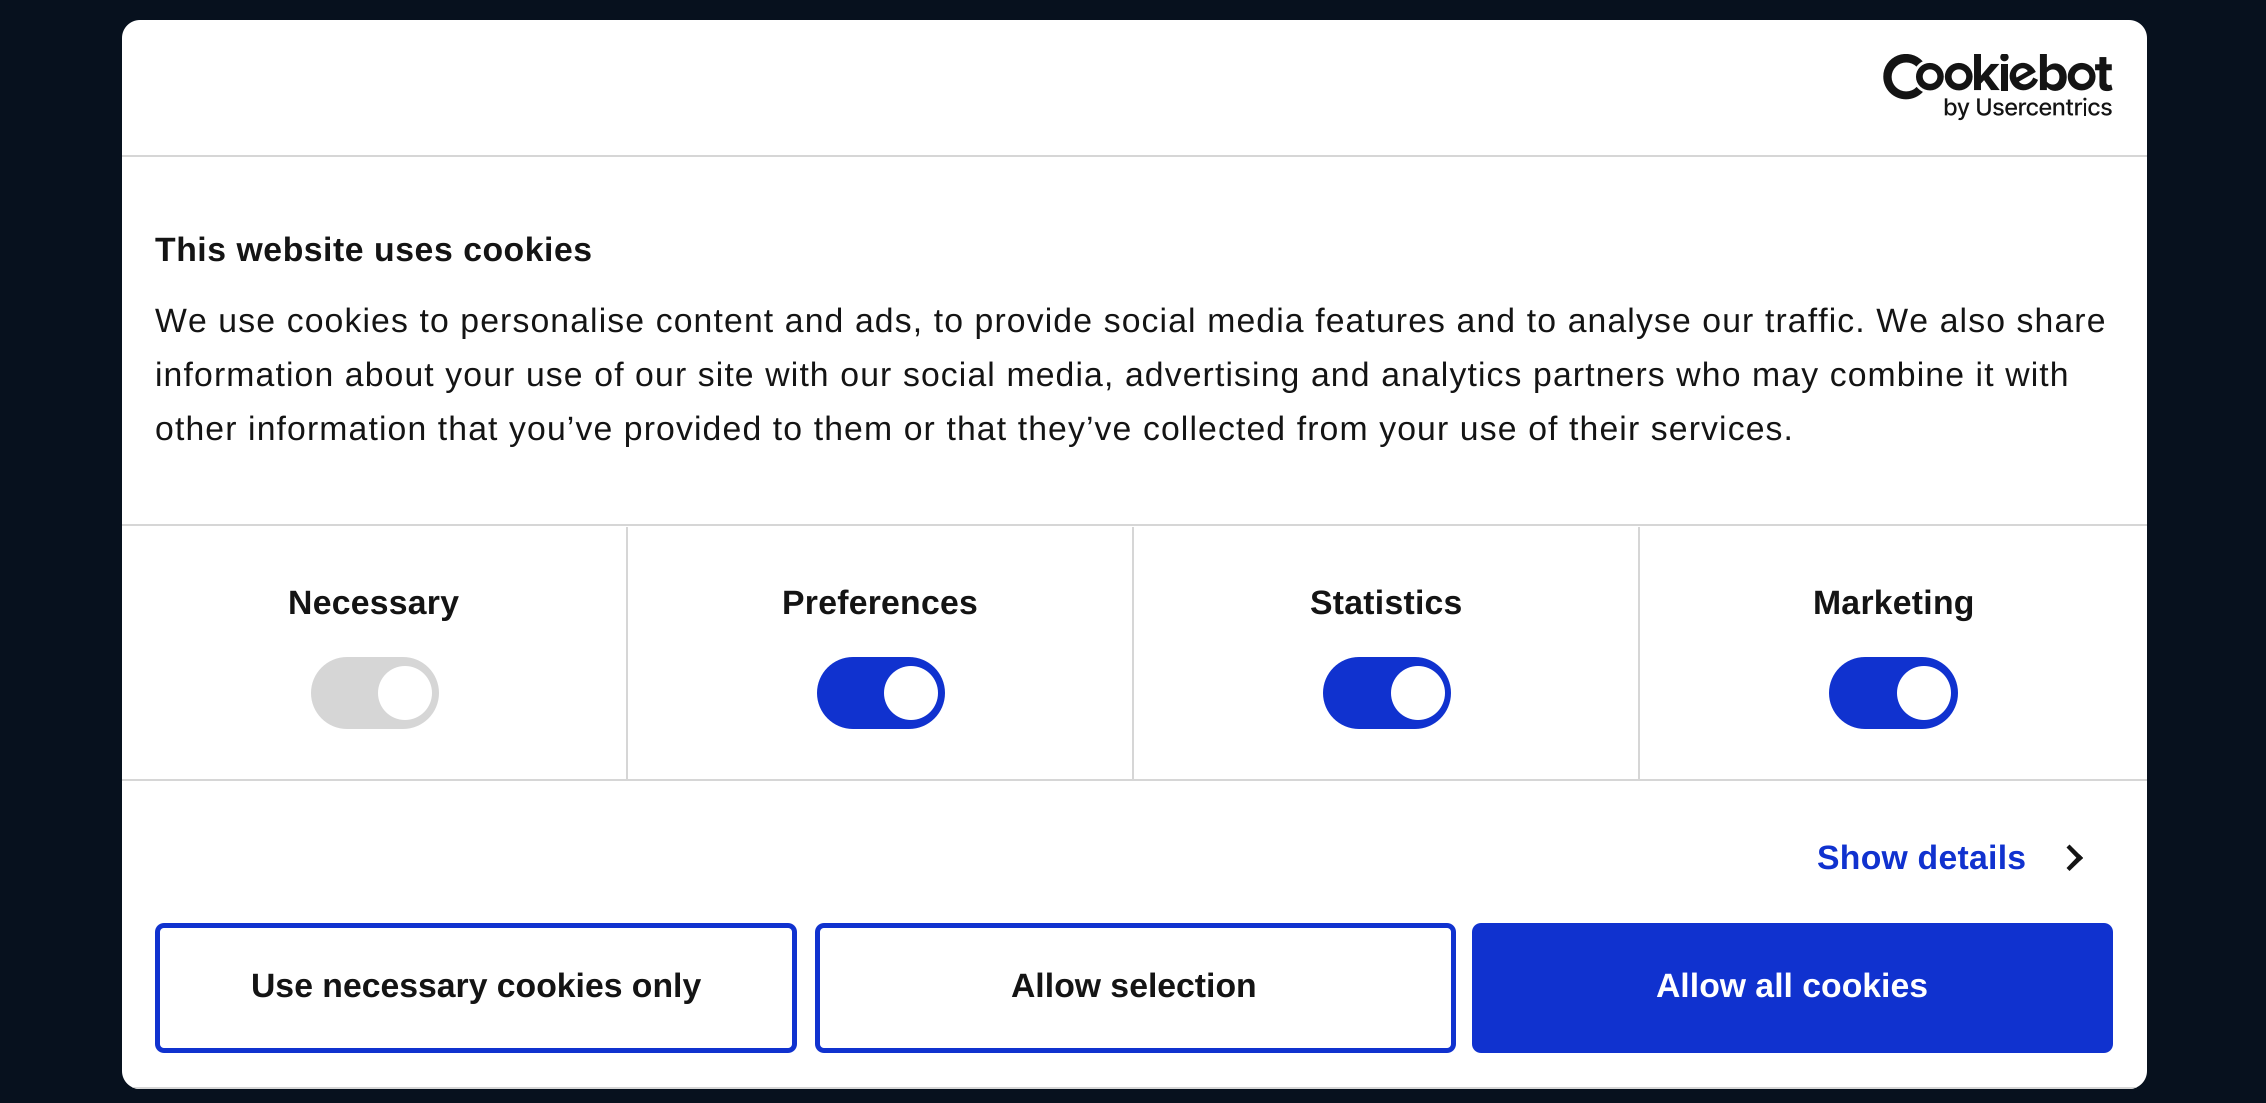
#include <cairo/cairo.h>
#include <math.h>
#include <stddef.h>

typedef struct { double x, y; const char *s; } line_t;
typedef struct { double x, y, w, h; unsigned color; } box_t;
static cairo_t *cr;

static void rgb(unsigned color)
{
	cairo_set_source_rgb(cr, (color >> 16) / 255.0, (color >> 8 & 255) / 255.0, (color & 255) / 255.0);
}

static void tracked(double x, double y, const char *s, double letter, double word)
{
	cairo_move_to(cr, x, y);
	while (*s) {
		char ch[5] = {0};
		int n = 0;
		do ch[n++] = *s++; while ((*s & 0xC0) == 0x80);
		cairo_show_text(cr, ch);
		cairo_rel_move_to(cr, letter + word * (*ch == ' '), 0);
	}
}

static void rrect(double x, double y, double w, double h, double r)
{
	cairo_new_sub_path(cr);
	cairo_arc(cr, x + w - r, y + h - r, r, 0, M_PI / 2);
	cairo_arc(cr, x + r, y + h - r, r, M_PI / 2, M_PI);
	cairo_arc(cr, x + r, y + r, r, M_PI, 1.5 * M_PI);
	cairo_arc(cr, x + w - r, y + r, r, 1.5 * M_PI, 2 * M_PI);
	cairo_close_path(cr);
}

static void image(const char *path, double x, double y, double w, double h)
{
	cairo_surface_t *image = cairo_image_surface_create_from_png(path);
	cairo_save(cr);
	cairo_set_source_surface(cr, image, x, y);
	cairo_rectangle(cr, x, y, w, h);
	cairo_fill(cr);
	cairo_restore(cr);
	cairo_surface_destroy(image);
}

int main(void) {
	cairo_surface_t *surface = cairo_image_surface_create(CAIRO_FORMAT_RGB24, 2266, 1103);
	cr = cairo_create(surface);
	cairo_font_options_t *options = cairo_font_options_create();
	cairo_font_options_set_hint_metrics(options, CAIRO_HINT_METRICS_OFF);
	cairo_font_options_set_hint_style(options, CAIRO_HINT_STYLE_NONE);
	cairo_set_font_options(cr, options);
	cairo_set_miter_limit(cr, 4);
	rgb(0x07111e);
	cairo_paint(cr);
	rgb(0xffffff);
	rrect(122, 20, 2025, 1069, 18);
	cairo_fill(cr);
	rgb(0xd6d6d6);
	cairo_rectangle(cr, 122, 155, 2025, 2);
	cairo_fill(cr);
	image("img/1.png", 1883, 54, 230, 67);
	{
		static const box_t items[] = {
			{122, 524, 2025, 2, 0xd6d6d6},
			{122, 779, 2025, 2, 0xd6d6d6},
			{626, 527, 2, 252, 0xd6d6d6},
		};
		for (size_t i = 0; i < sizeof items / sizeof *items; i++) {
			rgb(items[i].color);
			cairo_rectangle(cr, items[i].x, items[i].y, items[i].w, items[i].h);
			cairo_fill(cr);
		}
	}
	rrect(311, 657, 128, 72, 36);
	cairo_fill(cr);
	rgb(0xffffff);
	cairo_arc(cr, 405, 693, 27, 0, 2 * M_PI);
	cairo_fill(cr);
	rgb(0xd6d6d6);
	cairo_rectangle(cr, 1132, 527, 2, 252);
	cairo_fill(cr);
	rgb(0x1032cf);
	rrect(817, 657, 128, 72, 36);
	cairo_fill(cr);
	rgb(0xffffff);
	cairo_arc(cr, 911, 693, 27, 0, 2 * M_PI);
	cairo_fill(cr);
	rgb(0xd6d6d6);
	cairo_rectangle(cr, 1638, 527, 2, 252);
	cairo_fill(cr);
	rgb(0x1032cf);
	rrect(1323, 657, 128, 72, 36);
	cairo_fill(cr);
	rgb(0xffffff);
	cairo_arc(cr, 1418, 693, 27, 0, 2 * M_PI);
	cairo_fill(cr);
	rgb(0x1032cf);
	rrect(1829, 657, 129, 72, 36);
	cairo_fill(cr);
	rgb(0xffffff);
	cairo_arc(cr, 1924, 693, 27, 0, 2 * M_PI);
	cairo_fill(cr);
	rgb(0x141414);
	cairo_new_path(cr);
	cairo_move_to(cr, 2069.5, 844.5);
	cairo_line_to(cr, 2083, 858);
	cairo_line_to(cr, 2079.5, 861);
	cairo_line_to(cr, 2066.5, 847.5);
	cairo_close_path(cr);
	cairo_fill(cr);
	cairo_new_path(cr);
	cairo_move_to(cr, 2079.5, 854.5);
	cairo_line_to(cr, 2083, 858);
	cairo_line_to(cr, 2069.5, 871);
	cairo_line_to(cr, 2066.5, 868);
	cairo_close_path(cr);
	cairo_fill(cr);
	cairo_save(cr);
	rrect(122, 20, 2025, 1069, 18);
	cairo_clip(cr);
	rgb(0xd6d6d6);
	cairo_rectangle(cr, 132, 1087, 2005, 2);
	cairo_fill(cr);
	cairo_restore(cr);
	rrect(157.5, 925.5, 637, 125, 6.5);
	rgb(0x1032cf);
	cairo_set_line_width(cr, 5);
	cairo_stroke(cr);
	rrect(817.5, 925.5, 636, 125, 6.5);
	cairo_stroke(cr);
	rrect(1474.5, 925.5, 636, 125, 6.5);
	cairo_fill_preserve(cr);
	cairo_stroke(cr);
	cairo_select_font_face(cr, "Liberation Sans", CAIRO_FONT_SLANT_NORMAL, CAIRO_FONT_WEIGHT_BOLD);
	cairo_set_font_size(cr, 33.75);
	rgb(0x141414);
	tracked(155, 261, "This website uses cookies", 0.55, 0);
	cairo_select_font_face(cr, "Liberation Sans", CAIRO_FONT_SLANT_NORMAL, CAIRO_FONT_WEIGHT_NORMAL);
	{
		static const line_t items[] = {
			{155, 332, "We use cookies to personalise content and ads, to provide social media features and to analyse our traffic. We also share"},
			{155, 386, "information about your use of our site with our social media, advertising and analytics partners who may combine it with"},
			{155, 440, "other information that you’ve provided to them or that they’ve collected from your use of their services."},
		};
		for (size_t i = 0; i < sizeof items / sizeof *items; i++) {
			tracked(items[i].x, items[i].y, items[i].s, 1.12, 0);
		}
	}
	cairo_select_font_face(cr, "Liberation Sans", CAIRO_FONT_SLANT_NORMAL, CAIRO_FONT_WEIGHT_BOLD);
	{
		static const line_t items[] = {
			{288, 614, "Necessary"},
			{782, 614, "Preferences"},
			{1310, 614, "Statistics"},
			{1813, 614, "Marketing"},
		};
		for (size_t i = 0; i < sizeof items / sizeof *items; i++) {
			tracked(items[i].x, items[i].y, items[i].s, 0.25, 0);
		}
	}
	rgb(0x1032cf);
	tracked(1817, 869, "Show details", 0.25, 0);
	rgb(0x141414);
	cairo_move_to(cr, 251, 997);
	cairo_show_text(cr, "Use necessary cookies only");
	cairo_move_to(cr, 1011, 997);
	cairo_show_text(cr, "Allow selection");
	rgb(0xffffff);
	cairo_move_to(cr, 1656, 997);
	cairo_show_text(cr, "Allow all cookies");
	cairo_surface_write_to_png(surface, "page.png");
	cairo_font_options_destroy(options);
	cairo_destroy(cr);
	cairo_surface_destroy(surface);
	return 0;
}
